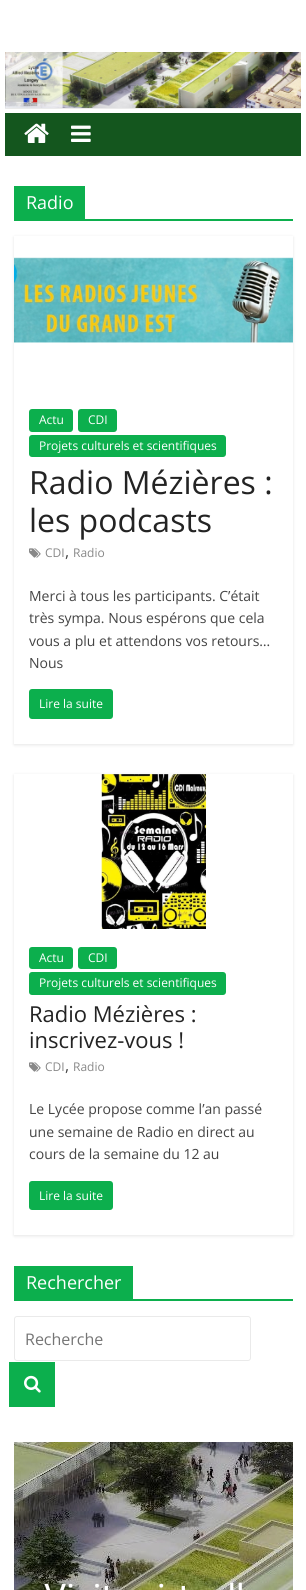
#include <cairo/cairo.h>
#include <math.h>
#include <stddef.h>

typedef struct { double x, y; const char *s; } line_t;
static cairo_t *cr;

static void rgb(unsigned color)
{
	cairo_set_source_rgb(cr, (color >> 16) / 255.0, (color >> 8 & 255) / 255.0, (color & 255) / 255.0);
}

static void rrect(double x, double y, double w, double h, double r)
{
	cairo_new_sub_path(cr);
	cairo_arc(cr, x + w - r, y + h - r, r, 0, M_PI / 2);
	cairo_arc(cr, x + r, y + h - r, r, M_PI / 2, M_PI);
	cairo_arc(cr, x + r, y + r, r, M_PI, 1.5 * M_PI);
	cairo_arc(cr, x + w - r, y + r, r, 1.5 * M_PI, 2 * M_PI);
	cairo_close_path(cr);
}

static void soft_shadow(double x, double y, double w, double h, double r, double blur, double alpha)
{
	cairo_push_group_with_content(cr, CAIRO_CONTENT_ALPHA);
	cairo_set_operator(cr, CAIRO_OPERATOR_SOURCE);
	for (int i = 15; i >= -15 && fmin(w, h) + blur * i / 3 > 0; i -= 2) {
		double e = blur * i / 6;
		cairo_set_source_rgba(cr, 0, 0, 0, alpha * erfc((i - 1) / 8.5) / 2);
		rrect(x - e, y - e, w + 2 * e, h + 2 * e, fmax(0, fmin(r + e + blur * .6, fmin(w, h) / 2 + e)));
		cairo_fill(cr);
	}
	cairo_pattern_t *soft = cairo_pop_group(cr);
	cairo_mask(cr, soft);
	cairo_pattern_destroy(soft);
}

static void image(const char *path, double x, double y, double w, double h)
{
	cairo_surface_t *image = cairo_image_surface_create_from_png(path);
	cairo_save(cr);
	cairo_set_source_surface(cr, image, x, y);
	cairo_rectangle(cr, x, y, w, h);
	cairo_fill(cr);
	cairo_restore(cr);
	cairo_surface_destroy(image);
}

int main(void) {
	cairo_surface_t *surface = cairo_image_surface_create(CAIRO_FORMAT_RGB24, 306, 1590);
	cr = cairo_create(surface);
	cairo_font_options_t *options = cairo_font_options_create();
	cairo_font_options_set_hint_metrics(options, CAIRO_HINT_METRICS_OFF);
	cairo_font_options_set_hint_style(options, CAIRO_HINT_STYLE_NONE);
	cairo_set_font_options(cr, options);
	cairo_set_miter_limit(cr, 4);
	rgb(0xffffff);
	cairo_paint(cr);
	image("img/1.png", 5, 52, 296, 56);
	rgb(0xeaeaea);
	cairo_rectangle(cr, 5, 108, 296, 1);
	cairo_fill(cr);
	rgb(0x14561e);
	cairo_rectangle(cr, 5, 113, 296, 43);
	cairo_fill(cr);
	image("img/2.png", 24, 123, 25, 20);
	image("img/3.png", 71, 125, 20, 17);
	rgb(0x0caf4d);
	cairo_rectangle(cr, 14, 219, 279, 2);
	cairo_fill(cr);
	cairo_rectangle(cr, 14, 186, 71, 33);
	cairo_fill(cr);
	cairo_save(cr);
	cairo_set_fill_rule(cr, CAIRO_FILL_RULE_EVEN_ODD);
	cairo_new_path(cr);
	cairo_move_to(cr, 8, 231);
	cairo_line_to(cr, 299, 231);
	cairo_line_to(cr, 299, 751);
	cairo_line_to(cr, 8, 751);
	cairo_close_path(cr);
	cairo_move_to(cr, 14, 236);
	cairo_line_to(cr, 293, 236);
	cairo_line_to(cr, 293, 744);
	cairo_line_to(cr, 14, 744);
	cairo_close_path(cr);
	cairo_clip(cr);
	rgb(0x000000);
	soft_shadow(14, 237, 279, 508, 0, 1.5, 0.1);
	cairo_restore(cr);
	image("img/4.png", 14, 257, 279, 86);
	rrect(29, 409, 44, 23, 3);
	cairo_fill(cr);
	rrect(78, 409, 39, 23, 3);
	cairo_fill(cr);
	rrect(29, 435, 197, 22, 3);
	cairo_fill(cr);
	image("img/5.png", 29, 548, 12, 10);
	rrect(29, 689, 84, 30, 3);
	cairo_fill(cr);
	cairo_save(cr);
	cairo_set_fill_rule(cr, CAIRO_FILL_RULE_EVEN_ODD);
	cairo_new_path(cr);
	cairo_move_to(cr, 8, 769);
	cairo_line_to(cr, 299, 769);
	cairo_line_to(cr, 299, 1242);
	cairo_line_to(cr, 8, 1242);
	cairo_close_path(cr);
	cairo_move_to(cr, 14, 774);
	cairo_line_to(cr, 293, 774);
	cairo_line_to(cr, 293, 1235);
	cairo_line_to(cr, 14, 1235);
	cairo_close_path(cr);
	cairo_clip(cr);
	rgb(0x000000);
	soft_shadow(14, 775, 279, 461, 0, 1.5, 0.1);
	cairo_restore(cr);
	image("img/6.png", 100, 774, 107, 155);
	rrect(29, 947, 44, 22, 3);
	cairo_fill(cr);
	rrect(78, 947, 39, 22, 3);
	cairo_fill(cr);
	rrect(29, 972, 197, 23, 3);
	cairo_fill(cr);
	image("img/5.png", 29, 1062, 12, 10);
	rrect(29, 1181, 84, 29, 3);
	cairo_fill(cr);
	cairo_rectangle(cr, 14, 1299, 279, 2);
	cairo_fill(cr);
	cairo_rectangle(cr, 14, 1266, 119, 33);
	cairo_fill(cr);
	rrect(14.5, 1316.5, 236, 44, 2.5);
	rgb(0xeaeaea);
	cairo_set_line_width(cr, 1);
	cairo_stroke(cr);
	rgb(0x0caf4d);
	cairo_rectangle(cr, 9, 1362, 46, 45);
	cairo_fill(cr);
	image("img/7.png", 24, 1375, 17, 18);
	image("img/8.png", 14, 1442, 279, 148);
	cairo_select_font_face(cr, "Open Sans", CAIRO_FONT_SLANT_NORMAL, CAIRO_FONT_WEIGHT_NORMAL);
	cairo_set_font_size(cr, 18);
	rgb(0xffffff);
	cairo_move_to(cr, 26, 209);
	cairo_show_text(cr, "Radio");
	cairo_set_font_size(cr, 12);
	{
		static const line_t items[] = {
			{39, 424, "Actu"},
			{88, 424, "CDI"},
			{39, 450, "Projets culturels et scientifiques"},
		};
		for (size_t i = 0; i < sizeof items / sizeof *items; i++) {
			cairo_move_to(cr, items[i].x, items[i].y);
			cairo_show_text(cr, items[i].s);
		}
	}
	cairo_set_font_size(cr, 32);
	rgb(0x232323);
	cairo_move_to(cr, 29, 494);
	cairo_show_text(cr, "Radio Mézières :");
	cairo_move_to(cr, 29, 532);
	cairo_show_text(cr, "les podcasts");
	cairo_set_font_size(cr, 12);
	rgb(0x888888);
	cairo_move_to(cr, 45, 557);
	cairo_show_text(cr, "CDI");
	cairo_set_font_size(cr, 16);
	rgb(0x444444);
	cairo_move_to(cr, 65, 557);
	cairo_show_text(cr, ",");
	cairo_set_font_size(cr, 12);
	rgb(0x888888);
	cairo_move_to(cr, 73, 557);
	cairo_show_text(cr, "Radio");
	cairo_set_font_size(cr, 14);
	rgb(0x444444);
	{
		static const line_t items[] = {
			{29, 601, "Merci à tous les participants. C’était"},
			{29, 623, "très sympa. Nous espérons que cela"},
			{29, 646, "vous a plu et attendons vos retours…"},
			{29, 668, "Nous"},
		};
		for (size_t i = 0; i < sizeof items / sizeof *items; i++) {
			cairo_move_to(cr, items[i].x, items[i].y);
			cairo_show_text(cr, items[i].s);
		}
	}
	cairo_set_font_size(cr, 12);
	rgb(0xffffff);
	{
		static const line_t items[] = {
			{39, 708, "Lire la suite"},
			{39, 962, "Actu"},
			{88, 962, "CDI"},
			{39, 987, "Projets culturels et scientifiques"},
		};
		for (size_t i = 0; i < sizeof items / sizeof *items; i++) {
			cairo_move_to(cr, items[i].x, items[i].y);
			cairo_show_text(cr, items[i].s);
		}
	}
	cairo_set_font_size(cr, 22);
	rgb(0x232323);
	cairo_move_to(cr, 29, 1022);
	cairo_show_text(cr, "Radio Mézières :");
	cairo_move_to(cr, 29, 1048);
	cairo_show_text(cr, "inscrivez-vous !");
	cairo_set_font_size(cr, 12);
	rgb(0x888888);
	cairo_move_to(cr, 45, 1071);
	cairo_show_text(cr, "CDI");
	cairo_set_font_size(cr, 16);
	rgb(0x444444);
	cairo_move_to(cr, 65, 1071);
	cairo_show_text(cr, ",");
	cairo_set_font_size(cr, 12);
	rgb(0x888888);
	cairo_move_to(cr, 73, 1071);
	cairo_show_text(cr, "Radio");
	cairo_set_font_size(cr, 14);
	rgb(0x444444);
	{
		static const line_t items[] = {
			{29, 1114, "Le Lycée propose comme l’an passé"},
			{29, 1137, "une semaine de Radio en direct au"},
			{29, 1159, "cours de la semaine du 12 au"},
		};
		for (size_t i = 0; i < sizeof items / sizeof *items; i++) {
			cairo_move_to(cr, items[i].x, items[i].y);
			cairo_show_text(cr, items[i].s);
		}
	}
	cairo_set_font_size(cr, 12);
	rgb(0xffffff);
	cairo_move_to(cr, 39, 1200);
	cairo_show_text(cr, "Lire la suite");
	cairo_set_font_size(cr, 18);
	cairo_move_to(cr, 26, 1289);
	cairo_show_text(cr, "Rechercher");
	cairo_set_font_size(cr, 16);
	rgb(0x757575);
	cairo_move_to(cr, 25, 1345);
	cairo_show_text(cr, "Recherche");
	cairo_surface_write_to_png(surface, "page.png");
	cairo_font_options_destroy(options);
	cairo_destroy(cr);
	cairo_surface_destroy(surface);
	return 0;
}
